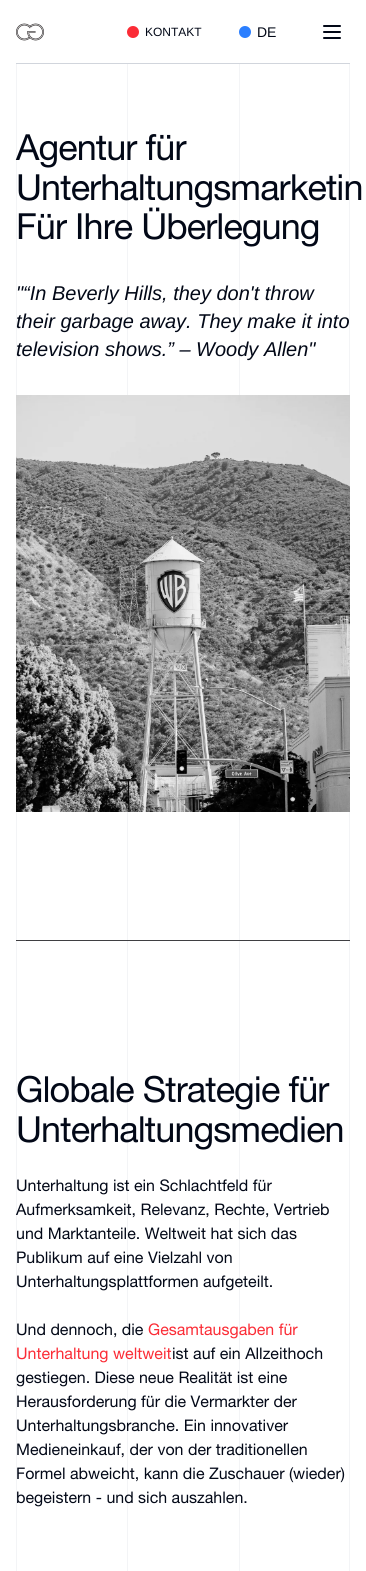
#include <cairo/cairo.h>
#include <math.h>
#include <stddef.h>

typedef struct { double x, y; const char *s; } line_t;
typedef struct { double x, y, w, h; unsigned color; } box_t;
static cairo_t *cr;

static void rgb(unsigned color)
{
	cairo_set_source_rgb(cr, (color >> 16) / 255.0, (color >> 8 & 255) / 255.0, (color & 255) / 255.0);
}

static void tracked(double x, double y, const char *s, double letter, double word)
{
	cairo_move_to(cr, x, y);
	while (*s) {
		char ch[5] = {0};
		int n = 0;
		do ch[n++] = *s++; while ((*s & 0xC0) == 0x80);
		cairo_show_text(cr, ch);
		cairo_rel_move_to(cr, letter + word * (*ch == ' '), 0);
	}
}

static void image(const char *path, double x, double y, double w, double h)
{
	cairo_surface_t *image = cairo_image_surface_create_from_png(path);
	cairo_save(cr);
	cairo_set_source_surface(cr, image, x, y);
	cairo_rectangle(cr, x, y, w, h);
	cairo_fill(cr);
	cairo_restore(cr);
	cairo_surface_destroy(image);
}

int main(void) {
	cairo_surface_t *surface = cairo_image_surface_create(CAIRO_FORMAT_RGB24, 366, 1571);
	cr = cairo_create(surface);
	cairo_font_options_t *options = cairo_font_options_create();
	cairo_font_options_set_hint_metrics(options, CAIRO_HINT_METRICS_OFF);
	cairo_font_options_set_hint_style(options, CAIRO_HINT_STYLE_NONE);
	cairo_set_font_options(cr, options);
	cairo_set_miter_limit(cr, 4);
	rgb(0xffffff);
	cairo_paint(cr);
	rgb(0xd1d5dc);
	cairo_rectangle(cr, 16, 63, 334, 1);
	cairo_fill(cr);
	image("img/1.png", 16, 23, 28, 18);
	rgb(0xfb2c36);
	cairo_arc(cr, 133, 32, 6, 0, 2 * M_PI);
	cairo_fill(cr);
	rgb(0x2b7fff);
	cairo_arc(cr, 245, 32, 6, 0, 2 * M_PI);
	cairo_fill(cr);
	image("img/2.png", 323, 25, 18, 14);
	{
		static const box_t items[] = {
			{16, 64, 1, 1507, 0xf3f4f6},
			{127, 64, 1, 1507, 0xf3f4f6},
			{239, 64, 1, 1507, 0xf3f4f6},
			{349, 64, 1, 1507, 0xf3f4f6},
		};
		for (size_t i = 0; i < sizeof items / sizeof *items; i++) {
			rgb(items[i].color);
			cairo_rectangle(cr, items[i].x, items[i].y, items[i].w, items[i].h);
			cairo_fill(cr);
		}
	}
	image("img/3.png", 16, 395, 334, 417);
	rgb(0x3f3f42);
	cairo_rectangle(cr, 16, 940, 334, 1);
	cairo_fill(cr);
	cairo_select_font_face(cr, "Liberation Sans", CAIRO_FONT_SLANT_NORMAL, CAIRO_FONT_WEIGHT_NORMAL);
	cairo_set_font_size(cr, 12);
	rgb(0x020817);
	cairo_move_to(cr, 145, 36);
	cairo_show_text(cr, "KONTAKT");
	cairo_set_font_size(cr, 14);
	cairo_move_to(cr, 257, 37);
	cairo_show_text(cr, "DE");
	cairo_select_font_face(cr, "Helvetica Neue", CAIRO_FONT_SLANT_NORMAL, CAIRO_FONT_WEIGHT_NORMAL);
	cairo_set_font_size(cr, 36);
	{
		static const line_t items[] = {
			{16, 160, "Agentur für"},
			{16, 200, "Unterhaltungsmarketin"},
			{16, 239, "Für Ihre Überlegung"},
		};
		for (size_t i = 0; i < sizeof items / sizeof *items; i++) {
			tracked(items[i].x, items[i].y, items[i].s, -0.9, 0);
		}
	}
	cairo_select_font_face(cr, "Liberation Sans", CAIRO_FONT_SLANT_ITALIC, CAIRO_FONT_WEIGHT_NORMAL);
	cairo_set_font_size(cr, 20);
	{
		static const line_t items[] = {
			{16, 300, "\"“In Beverly Hills, they don't throw"},
			{16, 328, "their garbage away. They make it into"},
			{16, 356, "television shows.” – Woody Allen\""},
		};
		for (size_t i = 0; i < sizeof items / sizeof *items; i++) {
			cairo_move_to(cr, items[i].x, items[i].y);
			cairo_show_text(cr, items[i].s);
		}
	}
	cairo_select_font_face(cr, "Helvetica Neue", CAIRO_FONT_SLANT_NORMAL, CAIRO_FONT_WEIGHT_NORMAL);
	cairo_set_font_size(cr, 36);
	tracked(16, 1102, "Globale Strategie für", -0.9, 0);
	tracked(16, 1142, "Unterhaltungsmedien", -0.9, 0);
	cairo_set_font_size(cr, 16);
	{
		static const line_t items[] = {
			{16, 1191, "Unterhaltung ist ein Schlachtfeld für"},
			{16, 1215, "Aufmerksamkeit, Relevanz, Rechte, Vertrieb"},
			{16, 1239, "und Marktanteile. Weltweit hat sich das"},
			{16, 1263, "Publikum auf eine Vielzahl von"},
			{16, 1287, "Unterhaltungsplattformen aufgeteilt."},
			{16, 1335, "Und dennoch, die"},
		};
		for (size_t i = 0; i < sizeof items / sizeof *items; i++) {
			cairo_move_to(cr, items[i].x, items[i].y);
			cairo_show_text(cr, items[i].s);
		}
	}
	rgb(0xfb2c36);
	cairo_move_to(cr, 148, 1335);
	cairo_show_text(cr, "Gesamtausgaben für");
	cairo_move_to(cr, 16, 1359);
	cairo_show_text(cr, "Unterhaltung weltweit");
	rgb(0x020817);
	{
		static const line_t items[] = {
			{172, 1359, "ist auf ein Allzeithoch"},
			{16, 1383, "gestiegen. Diese neue Realität ist eine"},
			{16, 1407, "Herausforderung für die Vermarkter der"},
			{16, 1431, "Unterhaltungsbranche. Ein innovativer"},
			{16, 1455, "Medieneinkauf, der von der traditionellen"},
			{16, 1479, "Formel abweicht, kann die Zuschauer (wieder)"},
			{16, 1503, "begeistern - und sich auszahlen."},
		};
		for (size_t i = 0; i < sizeof items / sizeof *items; i++) {
			cairo_move_to(cr, items[i].x, items[i].y);
			cairo_show_text(cr, items[i].s);
		}
	}
	cairo_surface_write_to_png(surface, "page.png");
	cairo_font_options_destroy(options);
	cairo_destroy(cr);
	cairo_surface_destroy(surface);
	return 0;
}
